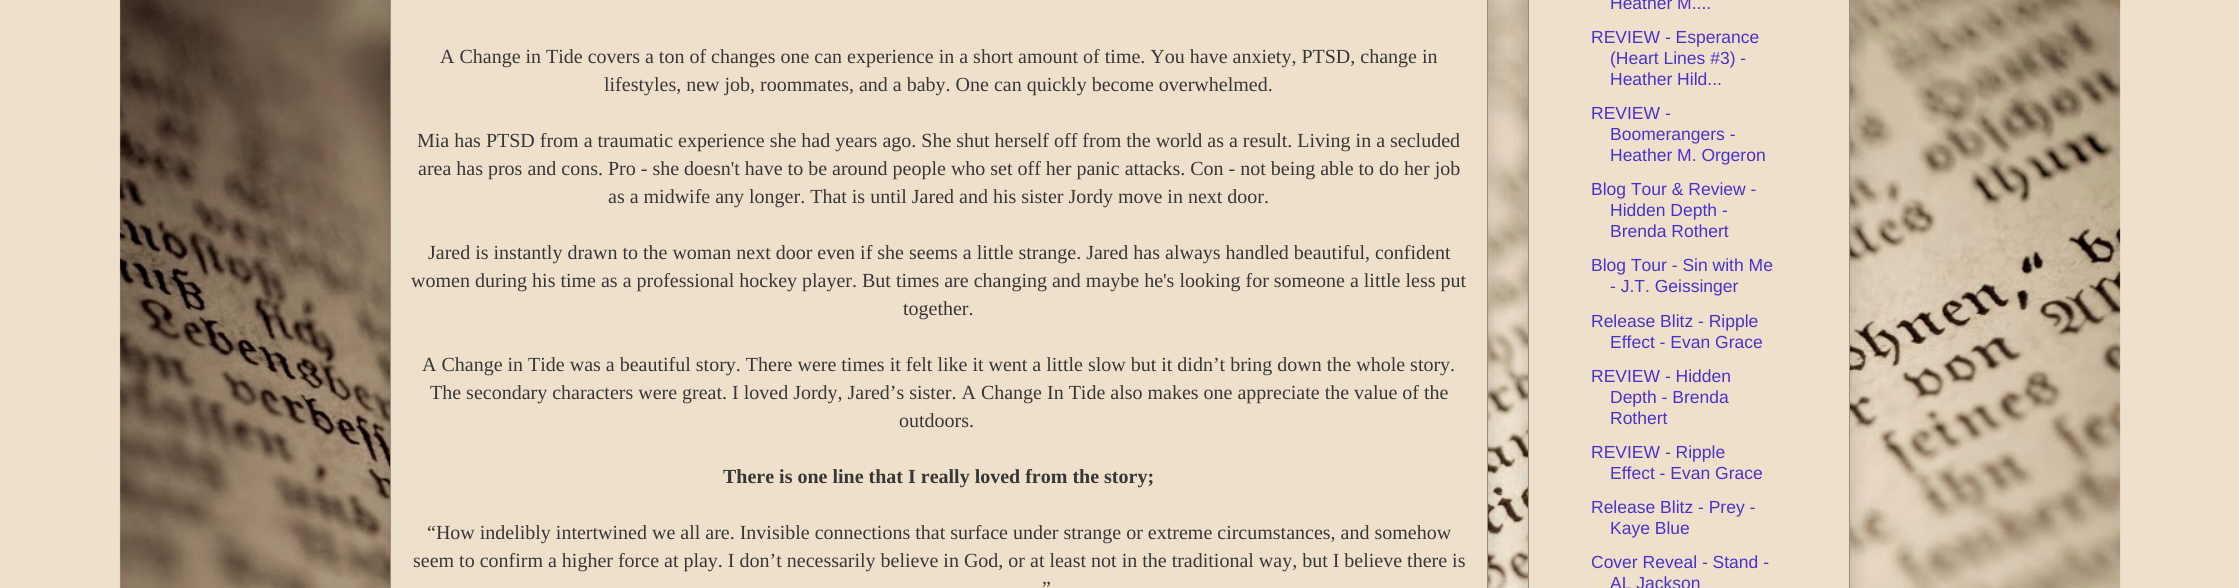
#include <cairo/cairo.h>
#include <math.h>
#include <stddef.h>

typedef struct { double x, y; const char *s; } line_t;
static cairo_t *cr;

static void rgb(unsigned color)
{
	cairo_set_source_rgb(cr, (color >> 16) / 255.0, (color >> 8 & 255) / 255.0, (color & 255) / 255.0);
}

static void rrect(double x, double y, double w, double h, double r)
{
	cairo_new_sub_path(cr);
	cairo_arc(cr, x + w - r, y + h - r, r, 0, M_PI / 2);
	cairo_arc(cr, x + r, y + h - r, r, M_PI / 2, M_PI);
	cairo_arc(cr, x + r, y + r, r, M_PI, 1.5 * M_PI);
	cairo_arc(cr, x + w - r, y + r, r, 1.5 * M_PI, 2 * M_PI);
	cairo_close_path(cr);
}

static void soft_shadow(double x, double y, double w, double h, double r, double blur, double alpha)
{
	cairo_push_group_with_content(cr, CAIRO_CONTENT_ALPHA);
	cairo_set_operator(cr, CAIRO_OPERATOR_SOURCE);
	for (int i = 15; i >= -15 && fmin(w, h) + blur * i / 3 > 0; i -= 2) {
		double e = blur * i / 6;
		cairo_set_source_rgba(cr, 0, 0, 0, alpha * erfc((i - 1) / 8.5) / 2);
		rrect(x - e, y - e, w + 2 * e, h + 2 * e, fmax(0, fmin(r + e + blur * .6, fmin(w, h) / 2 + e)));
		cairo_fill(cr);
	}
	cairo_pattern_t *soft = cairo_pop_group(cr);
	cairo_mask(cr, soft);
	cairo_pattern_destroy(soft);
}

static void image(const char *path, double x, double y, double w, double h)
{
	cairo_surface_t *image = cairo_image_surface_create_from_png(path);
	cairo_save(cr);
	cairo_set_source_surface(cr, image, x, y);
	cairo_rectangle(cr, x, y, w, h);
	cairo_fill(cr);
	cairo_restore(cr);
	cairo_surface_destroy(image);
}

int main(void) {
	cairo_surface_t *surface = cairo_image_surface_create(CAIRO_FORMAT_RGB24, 2239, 588);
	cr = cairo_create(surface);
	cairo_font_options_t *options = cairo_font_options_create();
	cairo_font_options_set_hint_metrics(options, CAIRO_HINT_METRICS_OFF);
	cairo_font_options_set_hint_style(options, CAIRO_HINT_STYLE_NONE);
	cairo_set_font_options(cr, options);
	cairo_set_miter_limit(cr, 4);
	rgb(0xefe0cb);
	cairo_paint(cr);
	image("img/1.png", 119, 0, 2002, 588);
	rgb(0x000000);
	soft_shadow(390, -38, 1098, 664, 0, 12.5, 0.2);
	rgb(0xefe0cb);
	cairo_rectangle(cr, 390.5, -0.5, 1097, 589);
	cairo_fill_preserve(cr);
	rgb(0x998e76);
	cairo_set_line_width(cr, 1);
	cairo_stroke(cr);
	rgb(0x000000);
	soft_shadow(1528, -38, 322, 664, 0, 12.5, 0.2);
	rgb(0xefe0cb);
	cairo_rectangle(cr, 1528.5, -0.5, 321, 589);
	cairo_fill_preserve(cr);
	rgb(0x998e76);
	cairo_stroke(cr);
	cairo_select_font_face(cr, "Liberation Serif", CAIRO_FONT_SLANT_NORMAL, CAIRO_FONT_WEIGHT_NORMAL);
	cairo_set_font_size(cr, 20);
	rgb(0x373737);
	{
		static const line_t items[] = {
			{440, 63, "A Change in Tide covers a ton of changes one can experience in a short amount of time. You have anxiety, PTSD, change in"},
			{604, 91, "lifestyles, new job, roommates, and a baby. One can quickly become overwhelmed."},
			{417, 147, "Mia has PTSD from a traumatic experience she had years ago. She shut herself off from the world as a result. Living in a secluded"},
			{418, 175, "area has pros and cons. Pro - she doesn't have to be around people who set off her panic attacks. Con - not being able to do her job"},
			{608, 203, "as a midwife any longer. That is until Jared and his sister Jordy move in next door."},
			{428, 259, "Jared is instantly drawn to the woman next door even if she seems a little strange. Jared has always handled beautiful, confident"},
			{411, 287, "women during his time as a professional hockey player. But times are changing and maybe he's looking for someone a little less put"},
			{903, 315, "together."},
			{422, 371, "A Change in Tide was a beautiful story. There were times it felt like it went a little slow but it didn’t bring down the whole story."},
			{430, 399, "The secondary characters were great. I loved Jordy, Jared’s sister. A Change In Tide also makes one appreciate the value of the"},
			{899, 427, "outdoors."},
		};
		for (size_t i = 0; i < sizeof items / sizeof *items; i++) {
			cairo_move_to(cr, items[i].x, items[i].y);
			cairo_show_text(cr, items[i].s);
		}
	}
	cairo_select_font_face(cr, "Liberation Serif", CAIRO_FONT_SLANT_NORMAL, CAIRO_FONT_WEIGHT_BOLD);
	cairo_move_to(cr, 723, 483);
	cairo_show_text(cr, "There is one line that I really loved from the story;");
	cairo_select_font_face(cr, "Liberation Serif", CAIRO_FONT_SLANT_NORMAL, CAIRO_FONT_WEIGHT_NORMAL);
	{
		static const line_t items[] = {
			{427, 539, "“How indelibly intertwined we all are. Invisible connections that surface under strange or extreme circumstances, and somehow"},
			{413, 567, "seem to confirm a higher force at play. I don’t necessarily believe in God, or at least not in the traditional way, but I believe there is"},
			{1042, 595, "”"},
		};
		for (size_t i = 0; i < sizeof items / sizeof *items; i++) {
			cairo_move_to(cr, items[i].x, items[i].y);
			cairo_show_text(cr, items[i].s);
		}
	}
	cairo_select_font_face(cr, "Liberation Sans", CAIRO_FONT_SLANT_NORMAL, CAIRO_FONT_WEIGHT_NORMAL);
	cairo_set_font_size(cr, 17.5);
	rgb(0x4932cb);
	{
		static const line_t items[] = {
			{1610, 9, "Heather M...."},
			{1591, 43, "REVIEW - Esperance"},
			{1610, 64, "(Heart Lines #3) -"},
			{1610, 85, "Heather Hild..."},
			{1591, 119, "REVIEW -"},
			{1610, 140, "Boomerangers -"},
			{1610, 161, "Heather M. Orgeron"},
			{1591, 195, "Blog Tour & Review -"},
			{1610, 216, "Hidden Depth -"},
			{1610, 237, "Brenda Rothert"},
			{1591, 271, "Blog Tour - Sin with Me"},
			{1610, 292, "- J.T. Geissinger"},
			{1591, 327, "Release Blitz - Ripple"},
			{1610, 348, "Effect - Evan Grace"},
			{1591, 382, "REVIEW - Hidden"},
			{1610, 403, "Depth - Brenda"},
			{1610, 424, "Rothert"},
			{1591, 458, "REVIEW - Ripple"},
			{1610, 479, "Effect - Evan Grace"},
			{1591, 513, "Release Blitz - Prey -"},
			{1610, 534, "Kaye Blue"},
			{1591, 568, "Cover Reveal - Stand -"},
			{1610, 589, "AL Jackson"},
		};
		for (size_t i = 0; i < sizeof items / sizeof *items; i++) {
			cairo_move_to(cr, items[i].x, items[i].y);
			cairo_show_text(cr, items[i].s);
		}
	}
	cairo_surface_write_to_png(surface, "page.png");
	cairo_font_options_destroy(options);
	cairo_destroy(cr);
	cairo_surface_destroy(surface);
	return 0;
}
